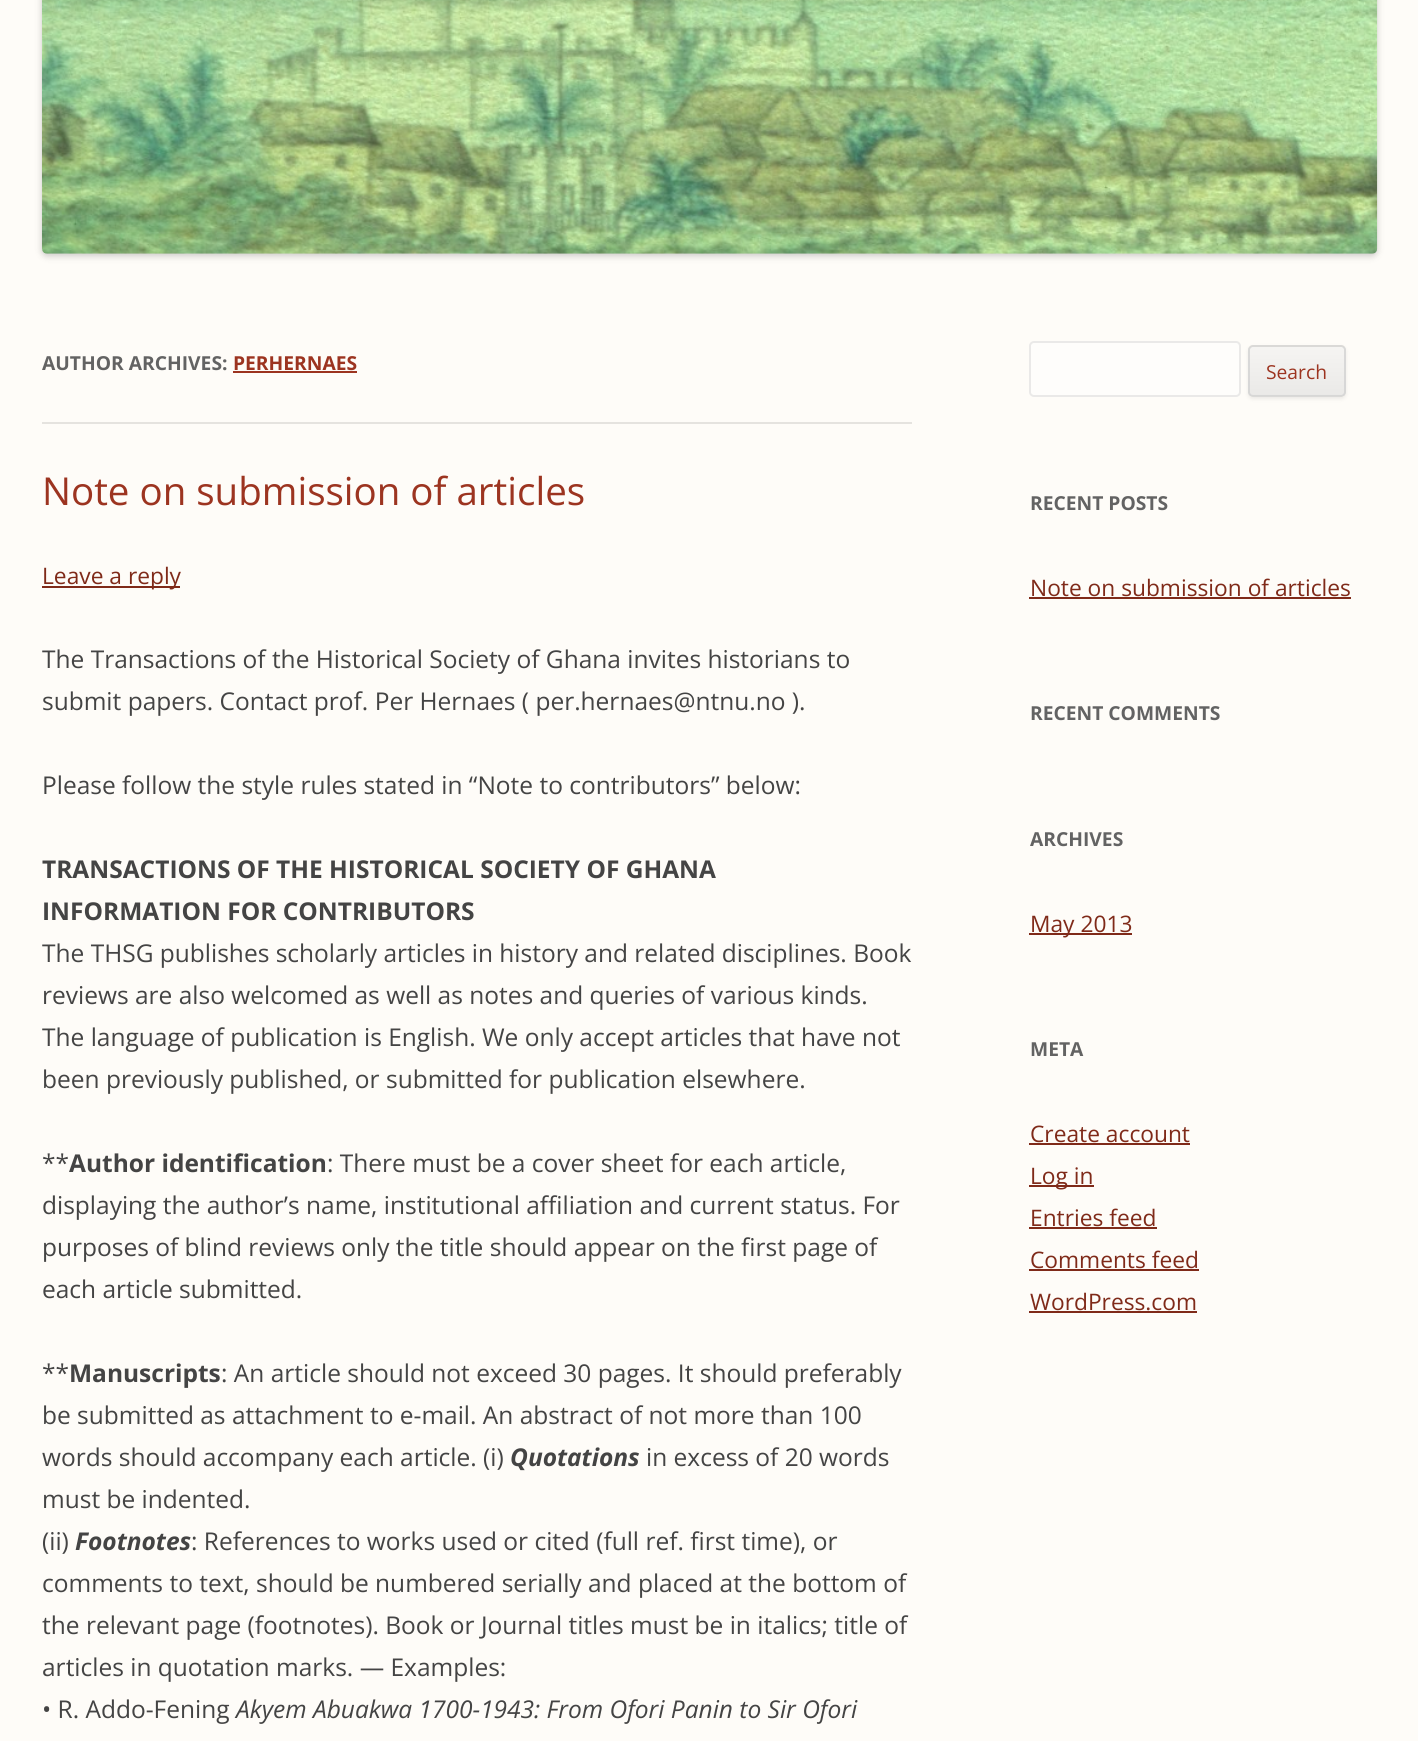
#include <cairo/cairo.h>
#include <math.h>
#include <stddef.h>

typedef struct { double x, y; const char *s; } line_t;
typedef struct { double x, y, w, h; unsigned color; } box_t;
static cairo_t *cr;

static void rgb(unsigned color)
{
	cairo_set_source_rgb(cr, (color >> 16) / 255.0, (color >> 8 & 255) / 255.0, (color & 255) / 255.0);
}

static void rrect(double x, double y, double w, double h, double r)
{
	cairo_new_sub_path(cr);
	cairo_arc(cr, x + w - r, y + h - r, r, 0, M_PI / 2);
	cairo_arc(cr, x + r, y + h - r, r, M_PI / 2, M_PI);
	cairo_arc(cr, x + r, y + r, r, M_PI, 1.5 * M_PI);
	cairo_arc(cr, x + w - r, y + r, r, 1.5 * M_PI, 2 * M_PI);
	cairo_close_path(cr);
}

static void soft_shadow(double x, double y, double w, double h, double r, double blur, double alpha)
{
	cairo_push_group_with_content(cr, CAIRO_CONTENT_ALPHA);
	cairo_set_operator(cr, CAIRO_OPERATOR_SOURCE);
	for (int i = 15; i >= -15 && fmin(w, h) + blur * i / 3 > 0; i -= 2) {
		double e = blur * i / 6;
		cairo_set_source_rgba(cr, 0, 0, 0, alpha * erfc((i - 1) / 8.5) / 2);
		rrect(x - e, y - e, w + 2 * e, h + 2 * e, fmax(0, fmin(r + e + blur * .6, fmin(w, h) / 2 + e)));
		cairo_fill(cr);
	}
	cairo_pattern_t *soft = cairo_pop_group(cr);
	cairo_mask(cr, soft);
	cairo_pattern_destroy(soft);
}

static void image(const char *path, double x, double y, double w, double h)
{
	cairo_surface_t *image = cairo_image_surface_create_from_png(path);
	cairo_save(cr);
	cairo_set_source_surface(cr, image, x, y);
	cairo_rectangle(cr, x, y, w, h);
	cairo_fill(cr);
	cairo_restore(cr);
	cairo_surface_destroy(image);
}

int main(void) {
	cairo_surface_t *surface = cairo_image_surface_create(CAIRO_FORMAT_RGB24, 1418, 1741);
	cr = cairo_create(surface);
	cairo_font_options_t *options = cairo_font_options_create();
	cairo_font_options_set_hint_metrics(options, CAIRO_HINT_METRICS_OFF);
	cairo_font_options_set_hint_style(options, CAIRO_HINT_STYLE_NONE);
	cairo_set_font_options(cr, options);
	cairo_set_miter_limit(cr, 4);
	cairo_pattern_t *gradient;
	rgb(0xfefcf8);
	cairo_paint(cr);
	rgb(0x000000);
	soft_shadow(42, -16, 1335, 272, 5, 3.5, 0.2);
	image("img/1.png", 42, 0, 1336, 254);
	{
		static const box_t items[] = {
			{42, 422, 870, 2, 0xe5e3df},
			{233, 371, 124, 2, 0x9c3420},
			{42, 586, 138, 2, 0x7f2a19},
		};
		for (size_t i = 0; i < sizeof items / sizeof *items; i++) {
			rgb(items[i].color);
			cairo_rectangle(cr, items[i].x, items[i].y, items[i].w, items[i].h);
			cairo_fill(cr);
		}
	}
	rgb(0xfefdfb);
	rrect(1030, 342, 210, 54, 4);
	cairo_fill_preserve(cr);
	rgb(0xeae9e8);
	cairo_stroke(cr);
	cairo_save(cr);
	cairo_set_fill_rule(cr, CAIRO_FILL_RULE_EVEN_ODD);
	cairo_new_path(cr);
	cairo_move_to(cr, 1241, 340);
	cairo_line_to(cr, 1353, 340);
	cairo_line_to(cr, 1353, 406);
	cairo_line_to(cr, 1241, 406);
	cairo_close_path(cr);
	cairo_move_to(cr, 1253, 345);
	cairo_line_to(cr, 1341, 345);
	cairo_curve_to(cr, 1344, 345, 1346, 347, 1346, 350);
	cairo_line_to(cr, 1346, 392);
	cairo_curve_to(cr, 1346, 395, 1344, 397, 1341, 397);
	cairo_line_to(cr, 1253, 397);
	cairo_curve_to(cr, 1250, 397, 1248, 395, 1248, 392);
	cairo_line_to(cr, 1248, 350);
	cairo_curve_to(cr, 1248, 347, 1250, 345, 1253, 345);
	cairo_close_path(cr);
	cairo_clip(cr);
	rgb(0x404040);
	soft_shadow(1248, 347, 98, 52, 5, 2, 0.1);
	cairo_restore(cr);
	cairo_set_source_rgba(cr, 0.925, 0.816, 0.471, 0.1);
	rrect(1248, 345, 98, 52, 5);
	cairo_fill(cr);
	cairo_save(cr);
	rrect(1248, 345, 98, 52, 5);
	cairo_clip(cr);
	gradient = cairo_pattern_create_linear(1297, 347, 1297, 396);
	cairo_pattern_add_color_stop_rgba(gradient, 0, 0.957, 0.957, 0.957, 0.8);
	cairo_pattern_add_color_stop_rgba(gradient, 1, 0.902, 0.902, 0.902, 0.8);
	cairo_set_source(cr, gradient);
	cairo_pattern_destroy(gradient);
	cairo_rectangle(cr, 1248, 347, 98, 49);
	cairo_fill(cr);
	cairo_restore(cr);
	rrect(1249, 346, 96, 50, 4);
	cairo_set_source_rgba(cr, 0.824, 0.824, 0.824, 0.8);
	cairo_stroke(cr);
	{
		static const box_t items[] = {
			{1029, 597, 322, 2, 0x7f2a19},
			{1029, 933, 103, 2, 0x7f2a19},
			{1029, 1143, 161, 2, 0x7f2a19},
			{1029, 1185, 65, 2, 0x7f2a19},
			{1029, 1227, 128, 2, 0x7f2a19},
			{1029, 1269, 170, 2, 0x7f2a19},
			{1029, 1311, 168, 2, 0x7f2a19},
		};
		for (size_t i = 0; i < sizeof items / sizeof *items; i++) {
			rgb(items[i].color);
			cairo_rectangle(cr, items[i].x, items[i].y, items[i].w, items[i].h);
			cairo_fill(cr);
		}
	}
	cairo_select_font_face(cr, "Open Sans", CAIRO_FONT_SLANT_NORMAL, CAIRO_FONT_WEIGHT_BOLD);
	cairo_set_font_size(cr, 19.25);
	rgb(0x636363);
	cairo_move_to(cr, 42, 370);
	cairo_show_text(cr, "AUTHOR ARCHIVES:");
	rgb(0x9c3420);
	cairo_move_to(cr, 233, 370);
	cairo_show_text(cr, "PERHERNAES");
	cairo_select_font_face(cr, "Open Sans", CAIRO_FONT_SLANT_NORMAL, CAIRO_FONT_WEIGHT_NORMAL);
	cairo_set_font_size(cr, 38.5);
	cairo_move_to(cr, 42, 505);
	cairo_show_text(cr, "Note on submission of articles");
	cairo_set_font_size(cr, 22.75);
	rgb(0x7f2a19);
	cairo_move_to(cr, 42, 584);
	cairo_show_text(cr, "Leave a reply");
	cairo_set_font_size(cr, 24.5);
	rgb(0x444444);
	{
		static const line_t items[] = {
			{42, 668, "The Transactions of the Historical Society of Ghana invites historians to"},
			{42, 710, "submit papers. Contact prof. Per Hernaes ( per.hernaes@ntnu.no )."},
			{42, 794, "Please follow the style rules stated in “Note to contributors” below:"},
		};
		for (size_t i = 0; i < sizeof items / sizeof *items; i++) {
			cairo_move_to(cr, items[i].x, items[i].y);
			cairo_show_text(cr, items[i].s);
		}
	}
	cairo_select_font_face(cr, "Open Sans", CAIRO_FONT_SLANT_NORMAL, CAIRO_FONT_WEIGHT_BOLD);
	cairo_move_to(cr, 42, 878);
	cairo_show_text(cr, "TRANSACTIONS OF THE HISTORICAL SOCIETY OF GHANA");
	cairo_move_to(cr, 42, 920);
	cairo_show_text(cr, "INFORMATION FOR CONTRIBUTORS");
	cairo_select_font_face(cr, "Open Sans", CAIRO_FONT_SLANT_NORMAL, CAIRO_FONT_WEIGHT_NORMAL);
	{
		static const line_t items[] = {
			{42, 962, "The THSG publishes scholarly articles in history and related disciplines. Book"},
			{42, 1004, "reviews are also welcomed as well as notes and queries of various kinds."},
			{42, 1046, "The language of publication is English. We only accept articles that have not"},
			{42, 1088, "been previously published, or submitted for publication elsewhere."},
			{42, 1172, "**"},
		};
		for (size_t i = 0; i < sizeof items / sizeof *items; i++) {
			cairo_move_to(cr, items[i].x, items[i].y);
			cairo_show_text(cr, items[i].s);
		}
	}
	cairo_select_font_face(cr, "Open Sans", CAIRO_FONT_SLANT_NORMAL, CAIRO_FONT_WEIGHT_BOLD);
	cairo_move_to(cr, 69, 1172);
	cairo_show_text(cr, "Author identification");
	cairo_select_font_face(cr, "Open Sans", CAIRO_FONT_SLANT_NORMAL, CAIRO_FONT_WEIGHT_NORMAL);
	{
		static const line_t items[] = {
			{327, 1172, ": There must be a cover sheet for each article,"},
			{42, 1214, "displaying the author’s name, institutional affiliation and current status. For"},
			{42, 1256, "purposes of blind reviews only the title should appear on the first page of"},
			{42, 1298, "each article submitted."},
			{42, 1382, "**"},
		};
		for (size_t i = 0; i < sizeof items / sizeof *items; i++) {
			cairo_move_to(cr, items[i].x, items[i].y);
			cairo_show_text(cr, items[i].s);
		}
	}
	cairo_select_font_face(cr, "Open Sans", CAIRO_FONT_SLANT_NORMAL, CAIRO_FONT_WEIGHT_BOLD);
	cairo_move_to(cr, 69, 1382);
	cairo_show_text(cr, "Manuscripts");
	cairo_select_font_face(cr, "Open Sans", CAIRO_FONT_SLANT_NORMAL, CAIRO_FONT_WEIGHT_NORMAL);
	{
		static const line_t items[] = {
			{221, 1382, ": An article should not exceed 30 pages. It should preferably"},
			{42, 1424, "be submitted as attachment to e-mail. An abstract of not more than 100"},
			{42, 1466, "words should accompany each article. (i)"},
		};
		for (size_t i = 0; i < sizeof items / sizeof *items; i++) {
			cairo_move_to(cr, items[i].x, items[i].y);
			cairo_show_text(cr, items[i].s);
		}
	}
	cairo_select_font_face(cr, "Open Sans", CAIRO_FONT_SLANT_ITALIC, CAIRO_FONT_WEIGHT_BOLD);
	cairo_move_to(cr, 510, 1466);
	cairo_show_text(cr, "Quotations");
	cairo_select_font_face(cr, "Open Sans", CAIRO_FONT_SLANT_NORMAL, CAIRO_FONT_WEIGHT_NORMAL);
	{
		static const line_t items[] = {
			{646, 1466, "in excess of 20 words"},
			{42, 1508, "must be indented."},
			{42, 1550, "(ii)"},
		};
		for (size_t i = 0; i < sizeof items / sizeof *items; i++) {
			cairo_move_to(cr, items[i].x, items[i].y);
			cairo_show_text(cr, items[i].s);
		}
	}
	cairo_select_font_face(cr, "Open Sans", CAIRO_FONT_SLANT_ITALIC, CAIRO_FONT_WEIGHT_BOLD);
	cairo_move_to(cr, 75, 1550);
	cairo_show_text(cr, "Footnotes");
	cairo_select_font_face(cr, "Open Sans", CAIRO_FONT_SLANT_NORMAL, CAIRO_FONT_WEIGHT_NORMAL);
	{
		static const line_t items[] = {
			{191, 1550, ": References to works used or cited (full ref. first time), or"},
			{42, 1592, "comments to text, should be numbered serially and placed at the bottom of"},
			{42, 1634, "the relevant page (footnotes). Book or Journal titles must be in italics; title of"},
			{42, 1676, "articles in quotation marks. — Examples:"},
			{42, 1718, "• R. Addo-Fening"},
		};
		for (size_t i = 0; i < sizeof items / sizeof *items; i++) {
			cairo_move_to(cr, items[i].x, items[i].y);
			cairo_show_text(cr, items[i].s);
		}
	}
	cairo_select_font_face(cr, "Open Sans", CAIRO_FONT_SLANT_ITALIC, CAIRO_FONT_WEIGHT_NORMAL);
	cairo_move_to(cr, 236, 1718);
	cairo_show_text(cr, "Akyem Abuakwa 1700-1943: From Ofori Panin to Sir Ofori");
	cairo_select_font_face(cr, "Open Sans", CAIRO_FONT_SLANT_NORMAL, CAIRO_FONT_WEIGHT_NORMAL);
	cairo_set_font_size(cr, 19.25);
	rgb(0x9c3420);
	cairo_move_to(cr, 1266, 379);
	cairo_show_text(cr, "Search");
	cairo_select_font_face(cr, "Open Sans", CAIRO_FONT_SLANT_NORMAL, CAIRO_FONT_WEIGHT_BOLD);
	rgb(0x636363);
	cairo_move_to(cr, 1030, 510);
	cairo_show_text(cr, "RECENT POSTS");
	cairo_select_font_face(cr, "Open Sans", CAIRO_FONT_SLANT_NORMAL, CAIRO_FONT_WEIGHT_NORMAL);
	cairo_set_font_size(cr, 22.75);
	rgb(0x7f2a19);
	cairo_move_to(cr, 1030, 596);
	cairo_show_text(cr, "Note on submission of articles");
	cairo_select_font_face(cr, "Open Sans", CAIRO_FONT_SLANT_NORMAL, CAIRO_FONT_WEIGHT_BOLD);
	cairo_set_font_size(cr, 19.25);
	rgb(0x636363);
	cairo_move_to(cr, 1030, 720);
	cairo_show_text(cr, "RECENT COMMENTS");
	cairo_move_to(cr, 1030, 846);
	cairo_show_text(cr, "ARCHIVES");
	cairo_select_font_face(cr, "Open Sans", CAIRO_FONT_SLANT_NORMAL, CAIRO_FONT_WEIGHT_NORMAL);
	cairo_set_font_size(cr, 22.75);
	rgb(0x7f2a19);
	cairo_move_to(cr, 1030, 932);
	cairo_show_text(cr, "May 2013");
	cairo_select_font_face(cr, "Open Sans", CAIRO_FONT_SLANT_NORMAL, CAIRO_FONT_WEIGHT_BOLD);
	cairo_set_font_size(cr, 19.25);
	rgb(0x636363);
	cairo_move_to(cr, 1030, 1056);
	cairo_show_text(cr, "META");
	cairo_select_font_face(cr, "Open Sans", CAIRO_FONT_SLANT_NORMAL, CAIRO_FONT_WEIGHT_NORMAL);
	cairo_set_font_size(cr, 22.75);
	rgb(0x7f2a19);
	{
		static const line_t items[] = {
			{1030, 1142, "Create account"},
			{1030, 1184, "Log in"},
			{1030, 1226, "Entries feed"},
			{1030, 1268, "Comments feed"},
			{1030, 1310, "WordPress.com"},
		};
		for (size_t i = 0; i < sizeof items / sizeof *items; i++) {
			cairo_move_to(cr, items[i].x, items[i].y);
			cairo_show_text(cr, items[i].s);
		}
	}
	cairo_surface_write_to_png(surface, "page.png");
	cairo_font_options_destroy(options);
	cairo_destroy(cr);
	cairo_surface_destroy(surface);
	return 0;
}
